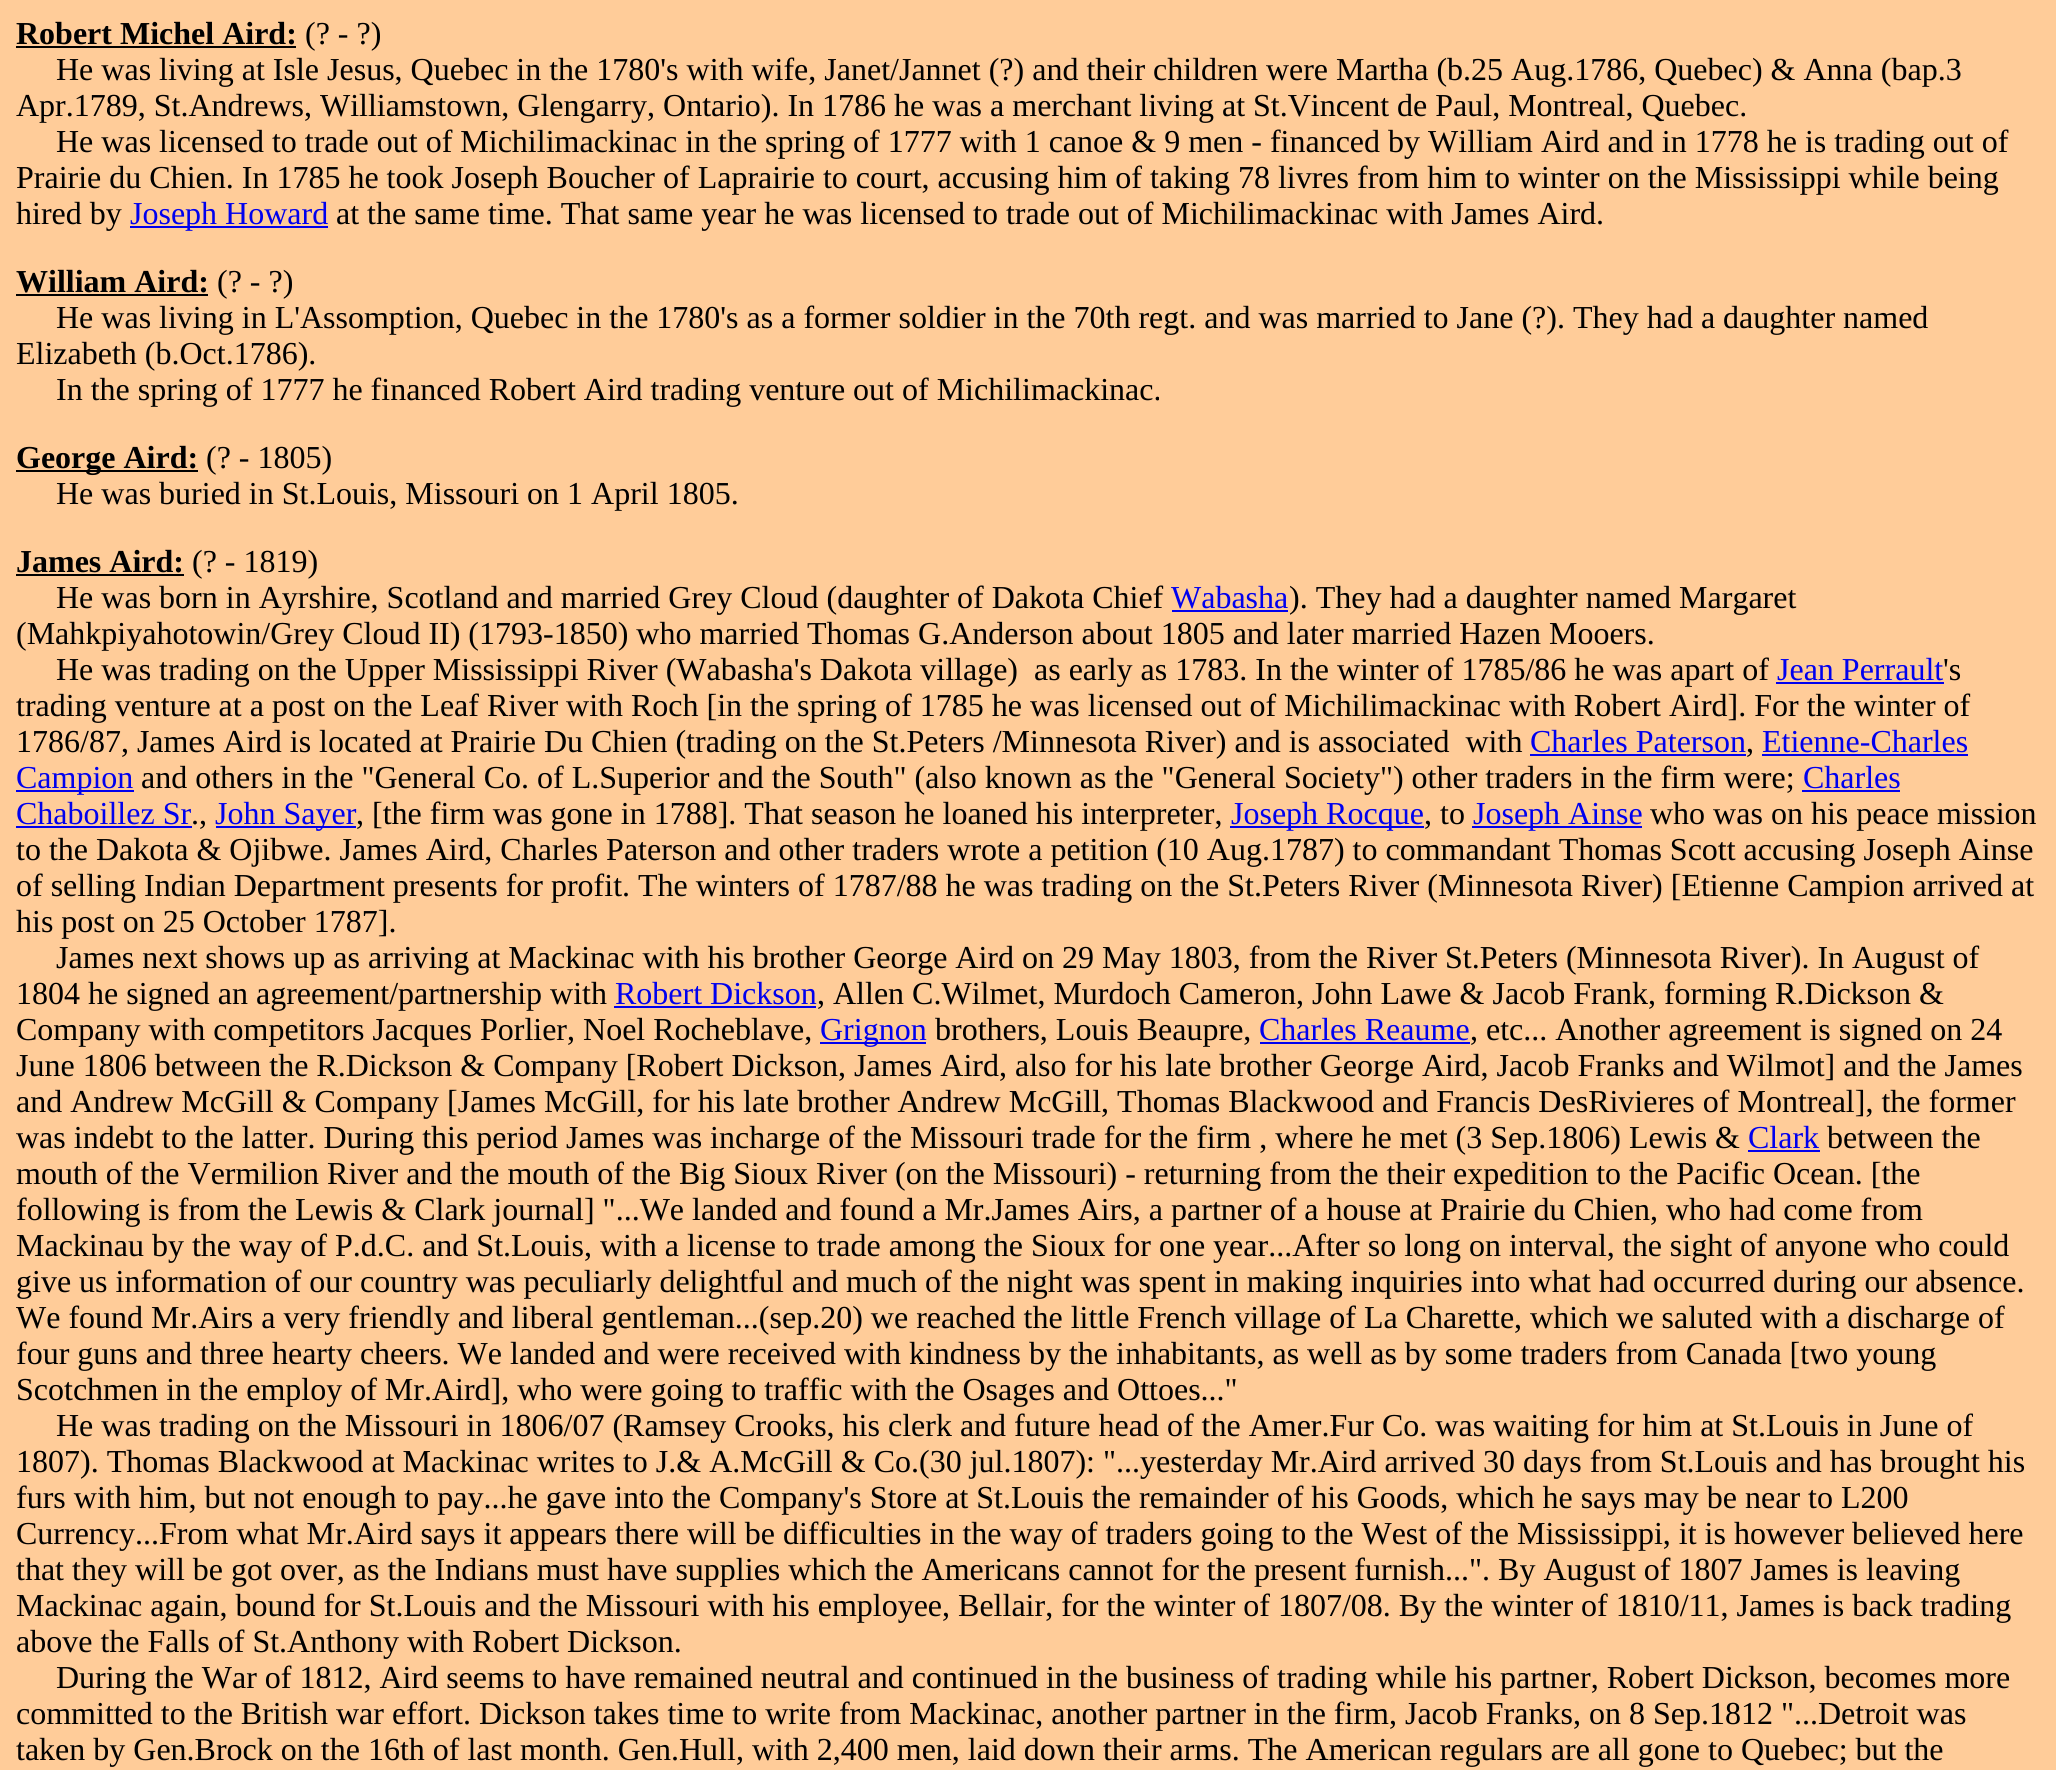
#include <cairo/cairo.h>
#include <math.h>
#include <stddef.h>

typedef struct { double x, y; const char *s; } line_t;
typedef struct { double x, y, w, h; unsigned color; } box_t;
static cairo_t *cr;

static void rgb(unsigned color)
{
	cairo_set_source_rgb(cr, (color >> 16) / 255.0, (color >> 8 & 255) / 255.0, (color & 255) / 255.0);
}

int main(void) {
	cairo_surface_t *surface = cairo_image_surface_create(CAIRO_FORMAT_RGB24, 2056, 1770);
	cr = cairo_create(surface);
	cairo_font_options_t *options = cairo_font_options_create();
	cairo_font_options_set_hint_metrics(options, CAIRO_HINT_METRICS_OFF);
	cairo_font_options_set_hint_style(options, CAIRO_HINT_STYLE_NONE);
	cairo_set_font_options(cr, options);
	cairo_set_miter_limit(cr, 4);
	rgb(0xffcc99);
	cairo_paint(cr);
	{
		static const box_t items[] = {
			{16, 46, 280, 2, 0x000000},
			{130, 226, 198, 2, 0x0000ee},
			{16, 294, 192, 2, 0x000000},
			{16, 470, 182, 2, 0x000000},
			{16, 574, 168, 2, 0x000000},
			{1172, 610, 116, 2, 0x0000ee},
			{1776, 682, 168, 2, 0x0000ee},
			{1530, 754, 216, 2, 0x0000ee},
			{1762, 754, 206, 2, 0x0000ee},
			{16, 790, 118, 2, 0x0000ee},
			{1802, 790, 98, 2, 0x0000ee},
			{16, 826, 176, 2, 0x0000ee},
			{216, 826, 140, 2, 0x0000ee},
			{1230, 826, 194, 2, 0x0000ee},
			{1472, 826, 170, 2, 0x0000ee},
			{614, 1006, 202, 2, 0x0000ee},
			{820, 1042, 106, 2, 0x0000ee},
			{1260, 1042, 210, 2, 0x0000ee},
			{1748, 1150, 72, 2, 0x0000ee},
		};
		for (size_t i = 0; i < sizeof items / sizeof *items; i++) {
			rgb(items[i].color);
			cairo_rectangle(cr, items[i].x, items[i].y, items[i].w, items[i].h);
			cairo_fill(cr);
		}
	}
	cairo_select_font_face(cr, "Liberation Serif", CAIRO_FONT_SLANT_NORMAL, CAIRO_FONT_WEIGHT_BOLD);
	cairo_set_font_size(cr, 32);
	rgb(0x000000);
	cairo_move_to(cr, 16, 44);
	cairo_show_text(cr, "Robert Michel Aird:");
	cairo_select_font_face(cr, "Liberation Serif", CAIRO_FONT_SLANT_NORMAL, CAIRO_FONT_WEIGHT_NORMAL);
	{
		static const line_t items[] = {
			{305, 44, "(? - ?)"},
			{56, 80, "He was living at Isle Jesus, Quebec in the 1780's with wife, Janet/Jannet (?) and their children were Martha (b.25 Aug.1786, Quebec) & Anna (bap.3"},
			{16, 116, "Apr.1789, St.Andrews, Williamstown, Glengarry, Ontario). In 1786 he was a merchant living at St.Vincent de Paul, Montreal, Quebec."},
			{56, 152, "He was licensed to trade out of Michilimackinac in the spring of 1777 with 1 canoe & 9 men - financed by William Aird and in 1778 he is trading out of"},
			{16, 188, "Prairie du Chien. In 1785 he took Joseph Boucher of Laprairie to court, accusing him of taking 78 livres from him to winter on the Mississippi while being"},
			{16, 224, "hired by"},
		};
		for (size_t i = 0; i < sizeof items / sizeof *items; i++) {
			cairo_move_to(cr, items[i].x, items[i].y);
			cairo_show_text(cr, items[i].s);
		}
	}
	rgb(0x0000ee);
	cairo_move_to(cr, 130, 224);
	cairo_show_text(cr, "Joseph Howard");
	rgb(0x000000);
	cairo_move_to(cr, 336, 224);
	cairo_show_text(cr, "at the same time. That same year he was licensed to trade out of Michilimackinac with James Aird.");
	cairo_select_font_face(cr, "Liberation Serif", CAIRO_FONT_SLANT_NORMAL, CAIRO_FONT_WEIGHT_BOLD);
	cairo_move_to(cr, 16, 292);
	cairo_show_text(cr, "William Aird:");
	cairo_select_font_face(cr, "Liberation Serif", CAIRO_FONT_SLANT_NORMAL, CAIRO_FONT_WEIGHT_NORMAL);
	{
		static const line_t items[] = {
			{217, 292, "(? - ?)"},
			{56, 328, "He was living in L'Assomption, Quebec in the 1780's as a former soldier in the 70th regt. and was married to Jane (?). They had a daughter named"},
			{16, 364, "Elizabeth (b.Oct.1786)."},
			{56, 400, "In the spring of 1777 he financed Robert Aird trading venture out of Michilimackinac."},
		};
		for (size_t i = 0; i < sizeof items / sizeof *items; i++) {
			cairo_move_to(cr, items[i].x, items[i].y);
			cairo_show_text(cr, items[i].s);
		}
	}
	cairo_select_font_face(cr, "Liberation Serif", CAIRO_FONT_SLANT_NORMAL, CAIRO_FONT_WEIGHT_BOLD);
	cairo_move_to(cr, 16, 468);
	cairo_show_text(cr, "George Aird:");
	cairo_select_font_face(cr, "Liberation Serif", CAIRO_FONT_SLANT_NORMAL, CAIRO_FONT_WEIGHT_NORMAL);
	cairo_move_to(cr, 206, 468);
	cairo_show_text(cr, "(? - 1805)");
	cairo_move_to(cr, 56, 504);
	cairo_show_text(cr, "He was buried in St.Louis, Missouri on 1 April 1805.");
	cairo_select_font_face(cr, "Liberation Serif", CAIRO_FONT_SLANT_NORMAL, CAIRO_FONT_WEIGHT_BOLD);
	cairo_move_to(cr, 16, 572);
	cairo_show_text(cr, "James Aird:");
	cairo_select_font_face(cr, "Liberation Serif", CAIRO_FONT_SLANT_NORMAL, CAIRO_FONT_WEIGHT_NORMAL);
	cairo_move_to(cr, 192, 572);
	cairo_show_text(cr, "(? - 1819)");
	cairo_move_to(cr, 56, 608);
	cairo_show_text(cr, "He was born in Ayrshire, Scotland and married Grey Cloud (daughter of Dakota Chief");
	rgb(0x0000ee);
	cairo_move_to(cr, 1171, 608);
	cairo_show_text(cr, "Wabasha");
	rgb(0x000000);
	{
		static const line_t items[] = {
			{1289, 608, "). They had a daughter named Margaret"},
			{16, 644, "(Mahkpiyahotowin/Grey Cloud II) (1793-1850) who married Thomas G.Anderson about 1805 and later married Hazen Mooers."},
			{56, 680, "He was trading on the Upper Mississippi River (Wabasha's Dakota village)  as early as 1783. In the winter of 1785/86 he was apart of"},
		};
		for (size_t i = 0; i < sizeof items / sizeof *items; i++) {
			cairo_move_to(cr, items[i].x, items[i].y);
			cairo_show_text(cr, items[i].s);
		}
	}
	rgb(0x0000ee);
	cairo_move_to(cr, 1777, 680);
	cairo_show_text(cr, "Jean Perrault");
	rgb(0x000000);
	{
		static const line_t items[] = {
			{1943, 680, "'s"},
			{16, 716, "trading venture at a post on the Leaf River with Roch [in the spring of 1785 he was licensed out of Michilimackinac with Robert Aird]. For the winter of"},
			{16, 752, "1786/87, James Aird is located at Prairie Du Chien (trading on the St.Peters /Minnesota River) and is associated  with"},
		};
		for (size_t i = 0; i < sizeof items / sizeof *items; i++) {
			cairo_move_to(cr, items[i].x, items[i].y);
			cairo_show_text(cr, items[i].s);
		}
	}
	rgb(0x0000ee);
	cairo_move_to(cr, 1530, 752);
	cairo_show_text(cr, "Charles Paterson");
	rgb(0x000000);
	cairo_move_to(cr, 1746, 752);
	cairo_show_text(cr, ",");
	rgb(0x0000ee);
	cairo_move_to(cr, 1762, 752);
	cairo_show_text(cr, "Etienne-Charles");
	cairo_move_to(cr, 16, 788);
	cairo_show_text(cr, "Campion");
	rgb(0x000000);
	cairo_move_to(cr, 141, 788);
	cairo_show_text(cr, "and others in the \"General Co. of L.Superior and the South\" (also known as the \"General Society\") other traders in the firm were;");
	rgb(0x0000ee);
	cairo_move_to(cr, 1803, 788);
	cairo_show_text(cr, "Charles");
	cairo_move_to(cr, 16, 824);
	cairo_show_text(cr, "Chaboillez Sr");
	rgb(0x000000);
	cairo_move_to(cr, 191, 824);
	cairo_show_text(cr, ".,");
	rgb(0x0000ee);
	cairo_move_to(cr, 215, 824);
	cairo_show_text(cr, "John Sayer");
	rgb(0x000000);
	cairo_move_to(cr, 356, 824);
	cairo_show_text(cr, ", [the firm was gone in 1788]. That season he loaned his interpreter,");
	rgb(0x0000ee);
	cairo_move_to(cr, 1231, 824);
	cairo_show_text(cr, "Joseph Rocque");
	rgb(0x000000);
	cairo_move_to(cr, 1424, 824);
	cairo_show_text(cr, ", to");
	rgb(0x0000ee);
	cairo_move_to(cr, 1473, 824);
	cairo_show_text(cr, "Joseph Ainse");
	rgb(0x000000);
	{
		static const line_t items[] = {
			{1650, 824, "who was on his peace mission"},
			{16, 860, "to the Dakota & Ojibwe. James Aird, Charles Paterson and other traders wrote a petition (10 Aug.1787) to commandant Thomas Scott accusing Joseph Ainse"},
			{16, 896, "of selling Indian Department presents for profit. The winters of 1787/88 he was trading on the St.Peters River (Minnesota River) [Etienne Campion arrived at"},
			{16, 932, "his post on 25 October 1787]."},
			{56, 968, "James next shows up as arriving at Mackinac with his brother George Aird on 29 May 1803, from the River St.Peters (Minnesota River). In August of"},
			{16, 1004, "1804 he signed an agreement/partnership with"},
		};
		for (size_t i = 0; i < sizeof items / sizeof *items; i++) {
			cairo_move_to(cr, items[i].x, items[i].y);
			cairo_show_text(cr, items[i].s);
		}
	}
	rgb(0x0000ee);
	cairo_move_to(cr, 615, 1004);
	cairo_show_text(cr, "Robert Dickson");
	rgb(0x000000);
	cairo_move_to(cr, 817, 1004);
	cairo_show_text(cr, ", Allen C.Wilmet, Murdoch Cameron, John Lawe & Jacob Frank, forming R.Dickson &");
	cairo_move_to(cr, 16, 1040);
	cairo_show_text(cr, "Company with competitors Jacques Porlier, Noel Rocheblave,");
	rgb(0x0000ee);
	cairo_move_to(cr, 820, 1040);
	cairo_show_text(cr, "Grignon");
	rgb(0x000000);
	cairo_move_to(cr, 935, 1040);
	cairo_show_text(cr, "brothers, Louis Beaupre,");
	rgb(0x0000ee);
	cairo_move_to(cr, 1259, 1040);
	cairo_show_text(cr, "Charles Reaume");
	rgb(0x000000);
	{
		static const line_t items[] = {
			{1470, 1040, ", etc... Another agreement is signed on 24"},
			{16, 1076, "June 1806 between the R.Dickson & Company [Robert Dickson, James Aird, also for his late brother George Aird, Jacob Franks and Wilmot] and the James"},
			{16, 1112, "and Andrew McGill & Company [James McGill, for his late brother Andrew McGill, Thomas Blackwood and Francis DesRivieres of Montreal], the former"},
			{16, 1148, "was indebt to the latter. During this period James was incharge of the Missouri trade for the firm , where he met (3 Sep.1806) Lewis &"},
		};
		for (size_t i = 0; i < sizeof items / sizeof *items; i++) {
			cairo_move_to(cr, items[i].x, items[i].y);
			cairo_show_text(cr, items[i].s);
		}
	}
	rgb(0x0000ee);
	cairo_move_to(cr, 1748, 1148);
	cairo_show_text(cr, "Clark");
	rgb(0x000000);
	{
		static const line_t items[] = {
			{1827, 1148, "between the"},
			{16, 1184, "mouth of the Vermilion River and the mouth of the Big Sioux River (on the Missouri) - returning from the their expedition to the Pacific Ocean. [the"},
			{16, 1220, "following is from the Lewis & Clark journal] \"...We landed and found a Mr.James Airs, a partner of a house at Prairie du Chien, who had come from"},
			{16, 1256, "Mackinau by the way of P.d.C. and St.Louis, with a license to trade among the Sioux for one year...After so long on interval, the sight of anyone who could"},
			{16, 1292, "give us information of our country was peculiarly delightful and much of the night was spent in making inquiries into what had occurred during our absence."},
			{16, 1328, "We found Mr.Airs a very friendly and liberal gentleman...(sep.20) we reached the little French village of La Charette, which we saluted with a discharge of"},
			{16, 1364, "four guns and three hearty cheers. We landed and were received with kindness by the inhabitants, as well as by some traders from Canada [two young"},
			{16, 1400, "Scotchmen in the employ of Mr.Aird], who were going to traffic with the Osages and Ottoes...\""},
			{56, 1436, "He was trading on the Missouri in 1806/07 (Ramsey Crooks, his clerk and future head of the Amer.Fur Co. was waiting for him at St.Louis in June of"},
			{16, 1472, "1807). Thomas Blackwood at Mackinac writes to J.& A.McGill & Co.(30 jul.1807): \"...yesterday Mr.Aird arrived 30 days from St.Louis and has brought his"},
			{16, 1508, "furs with him, but not enough to pay...he gave into the Company's Store at St.Louis the remainder of his Goods, which he says may be near to L200"},
			{16, 1544, "Currency...From what Mr.Aird says it appears there will be difficulties in the way of traders going to the West of the Mississippi, it is however believed here"},
			{16, 1580, "that they will be got over, as the Indians must have supplies which the Americans cannot for the present furnish...\". By August of 1807 James is leaving"},
			{16, 1616, "Mackinac again, bound for St.Louis and the Missouri with his employee, Bellair, for the winter of 1807/08. By the winter of 1810/11, James is back trading"},
			{16, 1652, "above the Falls of St.Anthony with Robert Dickson."},
			{56, 1688, "During the War of 1812, Aird seems to have remained neutral and continued in the business of trading while his partner, Robert Dickson, becomes more"},
			{16, 1724, "committed to the British war effort. Dickson takes time to write from Mackinac, another partner in the firm, Jacob Franks, on 8 Sep.1812 \"...Detroit was"},
			{16, 1760, "taken by Gen.Brock on the 16th of last month. Gen.Hull, with 2,400 men, laid down their arms. The American regulars are all gone to Quebec; but the"},
		};
		for (size_t i = 0; i < sizeof items / sizeof *items; i++) {
			cairo_move_to(cr, items[i].x, items[i].y);
			cairo_show_text(cr, items[i].s);
		}
	}
	cairo_surface_write_to_png(surface, "page.png");
	cairo_font_options_destroy(options);
	cairo_destroy(cr);
	cairo_surface_destroy(surface);
	return 0;
}
